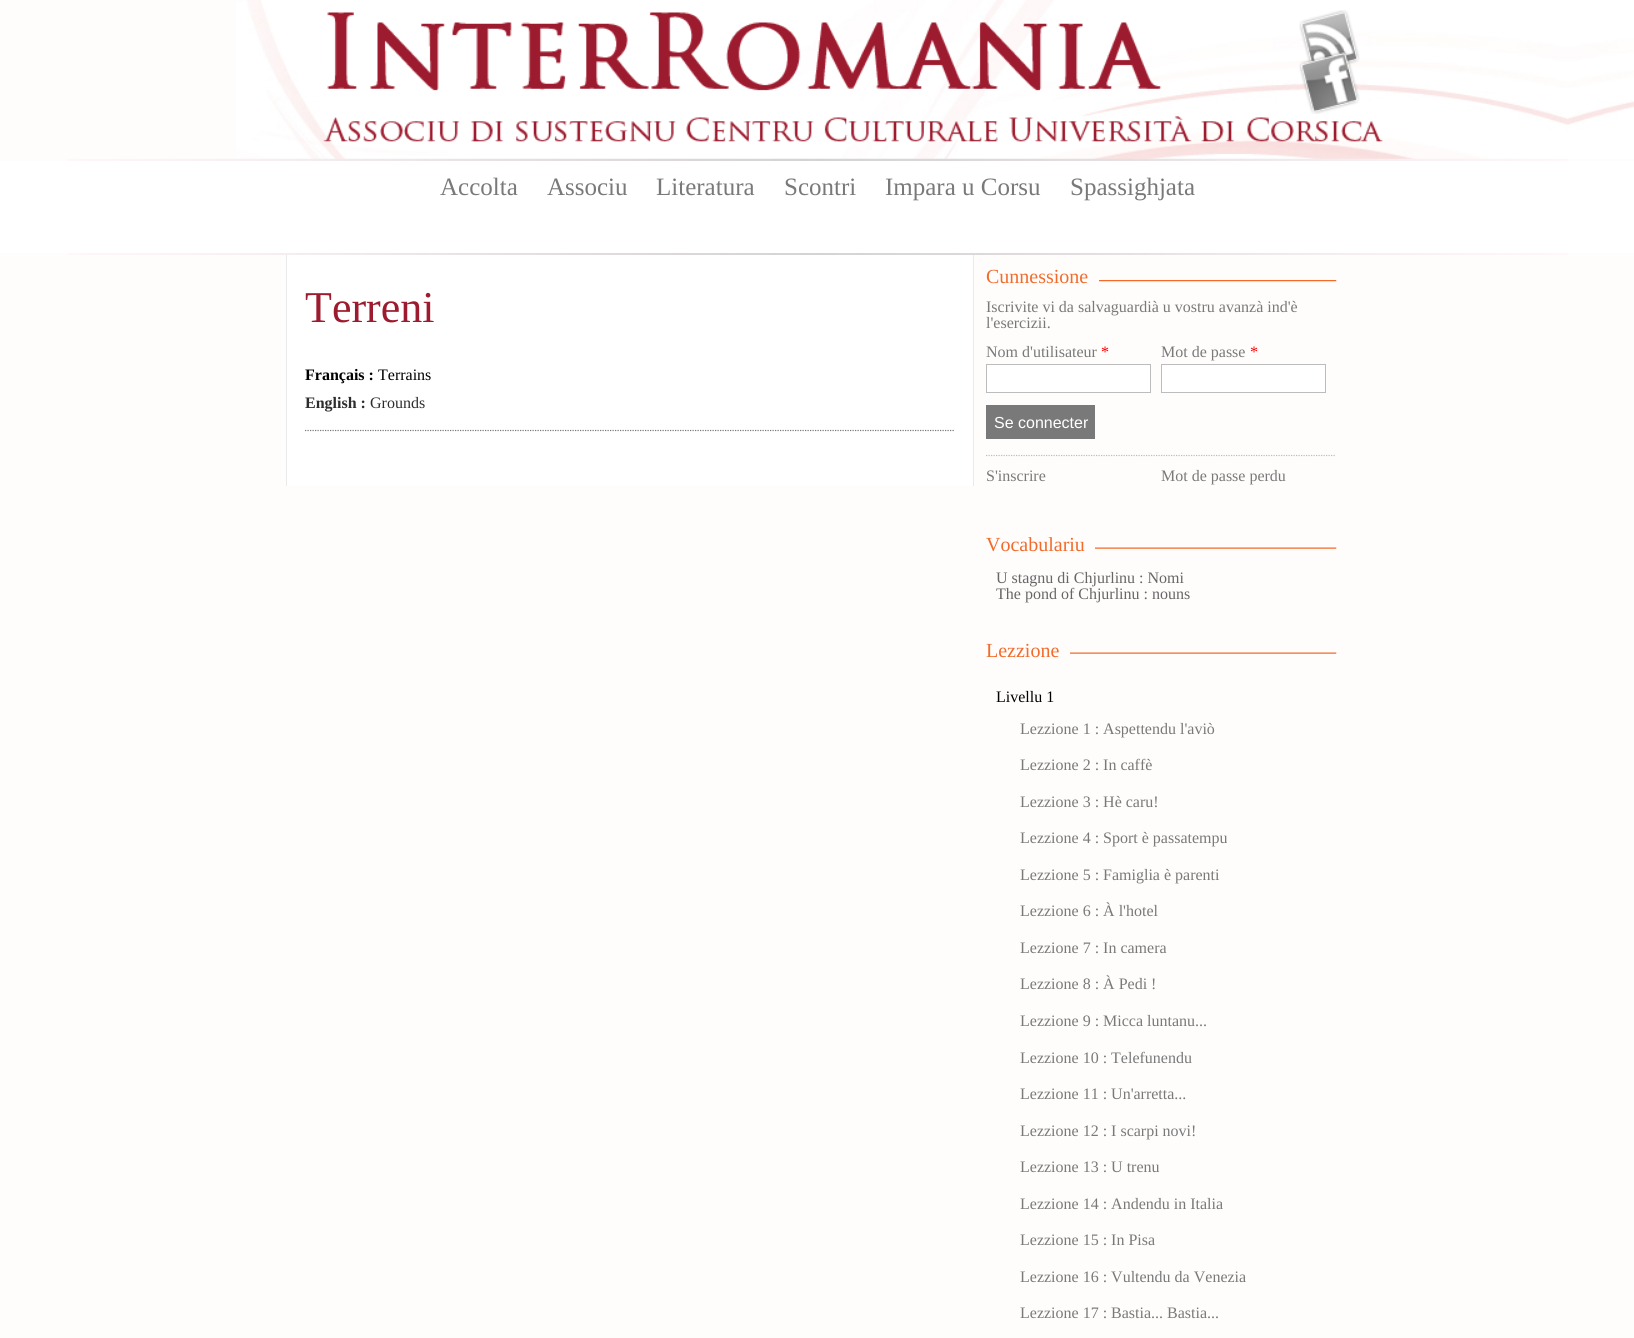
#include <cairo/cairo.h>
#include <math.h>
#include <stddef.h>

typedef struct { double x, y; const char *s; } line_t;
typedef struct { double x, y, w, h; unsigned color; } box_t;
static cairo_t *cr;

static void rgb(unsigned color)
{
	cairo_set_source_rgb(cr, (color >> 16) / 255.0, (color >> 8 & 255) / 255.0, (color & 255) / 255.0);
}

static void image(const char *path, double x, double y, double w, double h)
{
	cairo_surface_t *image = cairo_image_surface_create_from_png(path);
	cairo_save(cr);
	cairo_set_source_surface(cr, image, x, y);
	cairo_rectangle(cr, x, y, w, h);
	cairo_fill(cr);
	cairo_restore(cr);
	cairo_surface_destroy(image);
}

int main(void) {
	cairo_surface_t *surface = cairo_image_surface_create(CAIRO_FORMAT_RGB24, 1634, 1338);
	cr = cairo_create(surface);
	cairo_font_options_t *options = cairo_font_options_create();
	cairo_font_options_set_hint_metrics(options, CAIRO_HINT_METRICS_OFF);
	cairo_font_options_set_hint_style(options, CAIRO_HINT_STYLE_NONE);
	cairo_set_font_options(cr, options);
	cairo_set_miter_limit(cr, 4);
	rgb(0xfffdfc);
	cairo_paint(cr);
	image("img/1.png", 236, 0, 1398, 159);
	image("img/4.png", 323, 12, 1060, 130);
	image("img/2.png", 1299, 10, 61, 55);
	image("img/3.png", 1299, 51, 61, 63);
	image("img/5.png", 67, 158, 1501, 97);
	{
		static const box_t items[] = {
			{0, 161, 1634, 92, 0xffffff},
			{287, 255, 686, 231, 0xffffff},
			{973, 255, 1, 231, 0xeaeaea},
			{286, 255, 1, 231, 0xeaeaea},
		};
		for (size_t i = 0; i < sizeof items / sizeof *items; i++) {
			rgb(items[i].color);
			cairo_rectangle(cr, items[i].x, items[i].y, items[i].w, items[i].h);
			cairo_fill(cr);
		}
	}
	cairo_new_path(cr);
	cairo_move_to(cr, 305, 430.5);
	cairo_line_to(cr, 955, 430.5);
	rgb(0x797979);
	cairo_set_line_width(cr, 1.2);
	cairo_set_dash(cr, (double[]){1.25, 1.25}, 2, 0);
	cairo_stroke(cr);
	image("img/6.png", 1099, 280, 238, 2);
	rgb(0xffffff);
	cairo_rectangle(cr, 986.5, 364.5, 164, 28);
	cairo_fill_preserve(cr);
	rgb(0xbcbcbc);
	cairo_set_line_width(cr, 1);
	cairo_set_dash(cr, NULL, 0, 0);
	cairo_stroke(cr);
	rgb(0xffffff);
	cairo_rectangle(cr, 1161.5, 364.5, 164, 28);
	cairo_fill_preserve(cr);
	rgb(0xbcbcbc);
	cairo_stroke(cr);
	rgb(0x797979);
	cairo_rectangle(cr, 986, 405, 109, 34);
	cairo_fill(cr);
	cairo_new_path(cr);
	cairo_move_to(cr, 986, 455.5);
	cairo_line_to(cr, 1336, 455.5);
	rgb(0xbcbcbc);
	cairo_set_line_width(cr, 1.2);
	cairo_set_dash(cr, (double[]){1.25, 1.25}, 2, 0);
	cairo_stroke(cr);
	image("img/7.png", 1095, 547, 242, 2);
	image("img/8.png", 1070, 652, 267, 2);
	cairo_select_font_face(cr, "Liberation Serif", CAIRO_FONT_SLANT_NORMAL, CAIRO_FONT_WEIGHT_NORMAL);
	cairo_set_font_size(cr, 25);
	rgb(0x797979);
	{
		static const line_t items[] = {
			{440, 195, "Accolta"},
			{547, 195, "Associu"},
			{656, 195, "Literatura"},
			{784, 195, "Scontri"},
			{885, 195, "Impara u Corsu"},
			{1070, 195, "Spassighjata"},
		};
		for (size_t i = 0; i < sizeof items / sizeof *items; i++) {
			cairo_move_to(cr, items[i].x, items[i].y);
			cairo_show_text(cr, items[i].s);
		}
	}
	cairo_set_font_size(cr, 44);
	rgb(0x9d1b2e);
	cairo_move_to(cr, 305, 322);
	cairo_show_text(cr, "Terreni");
	cairo_select_font_face(cr, "Liberation Serif", CAIRO_FONT_SLANT_NORMAL, CAIRO_FONT_WEIGHT_BOLD);
	cairo_set_font_size(cr, 16);
	rgb(0x000000);
	cairo_move_to(cr, 305, 380);
	cairo_show_text(cr, "Français :");
	cairo_select_font_face(cr, "Liberation Serif", CAIRO_FONT_SLANT_NORMAL, CAIRO_FONT_WEIGHT_NORMAL);
	cairo_move_to(cr, 378, 380);
	cairo_show_text(cr, "Terrains");
	cairo_select_font_face(cr, "Liberation Serif", CAIRO_FONT_SLANT_NORMAL, CAIRO_FONT_WEIGHT_BOLD);
	rgb(0x2d2d2d);
	cairo_move_to(cr, 305, 408);
	cairo_show_text(cr, "English :");
	cairo_select_font_face(cr, "Liberation Serif", CAIRO_FONT_SLANT_NORMAL, CAIRO_FONT_WEIGHT_NORMAL);
	cairo_move_to(cr, 370, 408);
	cairo_show_text(cr, "Grounds");
	cairo_set_font_size(cr, 20);
	rgb(0xf26b2b);
	cairo_move_to(cr, 986, 283);
	cairo_show_text(cr, "Cunnessione");
	cairo_set_font_size(cr, 16);
	rgb(0x797979);
	{
		static const line_t items[] = {
			{986, 312, "Iscrivite vi da salvaguardià u vostru avanzà ind'è"},
			{986, 328, "l'esercizii."},
			{986, 357, "Nom d'utilisateur"},
		};
		for (size_t i = 0; i < sizeof items / sizeof *items; i++) {
			cairo_move_to(cr, items[i].x, items[i].y);
			cairo_show_text(cr, items[i].s);
		}
	}
	rgb(0xff0000);
	cairo_move_to(cr, 1101, 357);
	cairo_show_text(cr, "*");
	rgb(0x797979);
	cairo_move_to(cr, 1161, 357);
	cairo_show_text(cr, "Mot de passe");
	rgb(0xff0000);
	cairo_move_to(cr, 1250, 357);
	cairo_show_text(cr, "*");
	cairo_select_font_face(cr, "Liberation Sans", CAIRO_FONT_SLANT_NORMAL, CAIRO_FONT_WEIGHT_NORMAL);
	rgb(0xffffff);
	cairo_move_to(cr, 994, 428);
	cairo_show_text(cr, "Se connecter");
	cairo_select_font_face(cr, "Liberation Serif", CAIRO_FONT_SLANT_NORMAL, CAIRO_FONT_WEIGHT_NORMAL);
	rgb(0x797979);
	cairo_move_to(cr, 986, 481);
	cairo_show_text(cr, "S'inscrire");
	cairo_move_to(cr, 1161, 481);
	cairo_show_text(cr, "Mot de passe perdu");
	cairo_set_font_size(cr, 20);
	rgb(0xf26b2b);
	cairo_move_to(cr, 986, 551);
	cairo_show_text(cr, "Vocabulariu");
	cairo_set_font_size(cr, 16);
	rgb(0x666666);
	cairo_move_to(cr, 996, 583);
	cairo_show_text(cr, "U stagnu di Chjurlinu : Nomi");
	cairo_move_to(cr, 996, 599);
	cairo_show_text(cr, "The pond of Chjurlinu : nouns");
	cairo_set_font_size(cr, 20);
	rgb(0xf26b2b);
	cairo_move_to(cr, 986, 657);
	cairo_show_text(cr, "Lezzione");
	cairo_set_font_size(cr, 16);
	rgb(0x000000);
	cairo_move_to(cr, 996, 702);
	cairo_show_text(cr, "Livellu 1");
	rgb(0x797979);
	{
		static const line_t items[] = {
			{1020, 734, "Lezzione 1 : Aspettendu l'aviò"},
			{1020, 770, "Lezzione 2 : In caffè"},
			{1020, 807, "Lezzione 3 : Hè caru!"},
			{1020, 843, "Lezzione 4 : Sport è passatempu"},
			{1020, 880, "Lezzione 5 : Famiglia è parenti"},
			{1020, 916, "Lezzione 6 : À l'hotel"},
			{1020, 953, "Lezzione 7 : In camera"},
			{1020, 989, "Lezzione 8 : À Pedi !"},
			{1020, 1026, "Lezzione 9 : Micca luntanu..."},
			{1020, 1063, "Lezzione 10 : Telefunendu"},
			{1020, 1099, "Lezzione 11 : Un'arretta..."},
			{1020, 1136, "Lezzione 12 : I scarpi novi!"},
			{1020, 1172, "Lezzione 13 : U trenu"},
			{1020, 1209, "Lezzione 14 : Andendu in Italia"},
			{1020, 1245, "Lezzione 15 : In Pisa"},
			{1020, 1282, "Lezzione 16 : Vultendu da Venezia"},
			{1020, 1318, "Lezzione 17 : Bastia... Bastia..."},
		};
		for (size_t i = 0; i < sizeof items / sizeof *items; i++) {
			cairo_move_to(cr, items[i].x, items[i].y);
			cairo_show_text(cr, items[i].s);
		}
	}
	cairo_surface_write_to_png(surface, "page.png");
	cairo_font_options_destroy(options);
	cairo_destroy(cr);
	cairo_surface_destroy(surface);
	return 0;
}
